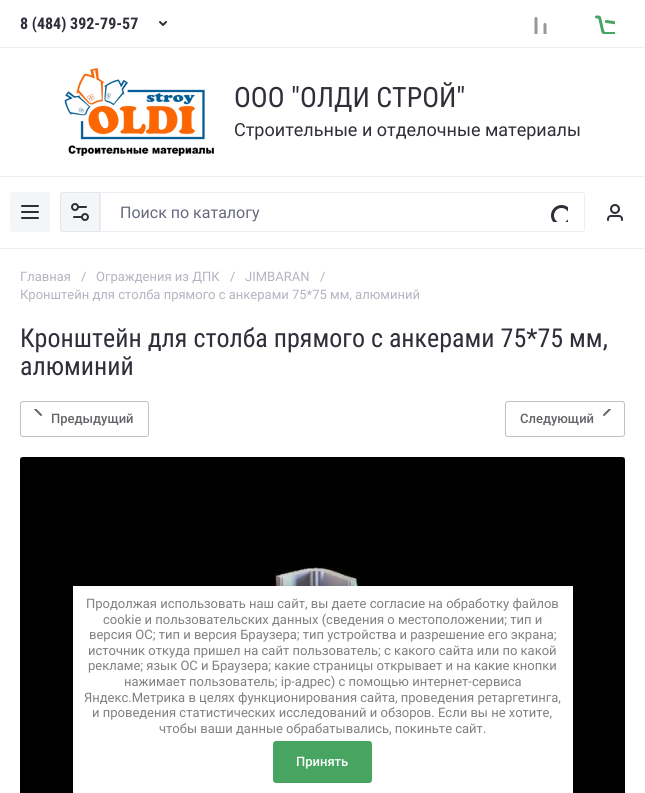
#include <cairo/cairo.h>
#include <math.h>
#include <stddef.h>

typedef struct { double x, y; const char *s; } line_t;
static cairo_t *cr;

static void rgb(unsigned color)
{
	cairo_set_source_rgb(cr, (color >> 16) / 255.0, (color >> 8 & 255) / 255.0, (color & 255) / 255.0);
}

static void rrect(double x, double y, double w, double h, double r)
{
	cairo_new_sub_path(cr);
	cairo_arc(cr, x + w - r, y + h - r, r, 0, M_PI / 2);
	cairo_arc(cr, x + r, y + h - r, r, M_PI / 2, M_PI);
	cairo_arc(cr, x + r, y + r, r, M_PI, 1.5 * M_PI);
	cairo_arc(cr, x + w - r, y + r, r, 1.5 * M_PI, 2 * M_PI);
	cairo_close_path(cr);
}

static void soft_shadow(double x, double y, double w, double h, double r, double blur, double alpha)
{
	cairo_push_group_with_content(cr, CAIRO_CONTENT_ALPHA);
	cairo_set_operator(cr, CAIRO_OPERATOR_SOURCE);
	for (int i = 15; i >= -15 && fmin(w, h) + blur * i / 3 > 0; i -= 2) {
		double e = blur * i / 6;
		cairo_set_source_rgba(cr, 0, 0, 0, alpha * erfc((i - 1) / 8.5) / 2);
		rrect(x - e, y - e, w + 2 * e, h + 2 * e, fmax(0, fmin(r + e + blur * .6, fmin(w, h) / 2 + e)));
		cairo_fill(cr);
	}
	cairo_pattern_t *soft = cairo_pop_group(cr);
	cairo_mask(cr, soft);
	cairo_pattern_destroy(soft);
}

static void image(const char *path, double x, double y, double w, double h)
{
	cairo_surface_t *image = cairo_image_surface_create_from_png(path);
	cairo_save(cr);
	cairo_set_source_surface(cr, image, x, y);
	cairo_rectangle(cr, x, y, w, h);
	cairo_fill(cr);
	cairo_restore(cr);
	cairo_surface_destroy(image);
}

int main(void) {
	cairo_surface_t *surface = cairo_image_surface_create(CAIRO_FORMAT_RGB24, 645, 793);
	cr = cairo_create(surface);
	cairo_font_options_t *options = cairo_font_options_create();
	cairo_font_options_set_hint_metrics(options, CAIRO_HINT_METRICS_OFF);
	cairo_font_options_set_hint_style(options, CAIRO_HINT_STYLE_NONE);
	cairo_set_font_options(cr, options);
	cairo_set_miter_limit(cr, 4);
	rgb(0xffffff);
	cairo_paint(cr);
	rgb(0xededf3);
	cairo_rectangle(cr, 0, 47, 645, 1);
	cairo_fill(cr);
	image("img/1.png", 159, 21, 8, 5);
	image("img/2.png", 534, 17, 13, 17);
	image("img/3.png", 595, 15, 20, 19);
	image("img/4.png", 64, 68, 150, 88);
	cairo_rectangle(cr, 0, 176, 645, 1);
	cairo_fill(cr);
	rgb(0xf3f5f7);
	rrect(10, 192, 40, 40, 3);
	cairo_fill(cr);
	image("img/5.png", 21, 205, 18, 14);
	cairo_new_path(cr);
	cairo_move_to(cr, 63, 192);
	cairo_line_to(cr, 100, 192);
	cairo_line_to(cr, 100, 232);
	cairo_line_to(cr, 63, 232);
	cairo_curve_to(cr, 61.5, 232, 60, 230.5, 60, 229);
	cairo_line_to(cr, 60, 195);
	cairo_curve_to(cr, 60, 193.5, 61.5, 192, 63, 192);
	cairo_close_path(cr);
	cairo_fill(cr);
	cairo_new_path(cr);
	cairo_move_to(cr, 63, 192.5);
	cairo_line_to(cr, 99.5, 192.5);
	cairo_line_to(cr, 99.5, 231.5);
	cairo_line_to(cr, 63, 231.5);
	cairo_curve_to(cr, 61.5, 231.5, 60.5, 230.5, 60.5, 229);
	cairo_line_to(cr, 60.5, 195);
	cairo_curve_to(cr, 60.5, 193.5, 61.5, 192.5, 63, 192.5);
	cairo_close_path(cr);
	cairo_set_source_rgba(cr, 0.824, 0.827, 0.878, 0.4);
	cairo_set_line_width(cr, 1);
	cairo_stroke(cr);
	image("img/6.png", 71, 203, 18, 18);
	cairo_new_path(cr);
	cairo_move_to(cr, 100.5, 192.5);
	cairo_line_to(cr, 582, 192.5);
	cairo_curve_to(cr, 583.5, 192.5, 584.5, 193.5, 584.5, 195);
	cairo_line_to(cr, 584.5, 229);
	cairo_curve_to(cr, 584.5, 230.5, 583.5, 231.5, 582, 231.5);
	cairo_line_to(cr, 100.5, 231.5);
	cairo_close_path(cr);
	rgb(0xededf3);
	cairo_stroke(cr);
	image("img/7.png", 551, 205, 17, 17);
	image("img/8.png", 607, 204, 16, 17);
	cairo_rectangle(cr, 0, 248, 645, 1);
	cairo_fill(cr);
	rrect(20.5, 401.5, 128, 35, 2.5);
	rgb(0xc0c1c2);
	cairo_stroke(cr);
	image("img/9.png", 34, 409, 8, 7);
	rrect(505.5, 401.5, 119, 35, 2.5);
	cairo_stroke(cr);
	image("img/10.png", 603, 409, 8, 7);
	image("img/11.png", 20, 457, 605, 336);
	cairo_set_source_rgba(cr, 0, 0, 0, 0.03);
	cairo_rectangle(cr, 20, 457, 605, 336);
	cairo_fill(cr);
	rgb(0x000000);
	soft_shadow(73, 587, 500, 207, 0, 5, 0.23);
	rgb(0xffffff);
	cairo_rectangle(cr, 73, 586, 500, 207);
	cairo_fill(cr);
	rgb(0x47a561);
	rrect(273, 741, 99, 42, 3);
	cairo_fill(cr);
	cairo_select_font_face(cr, "Roboto Condensed", CAIRO_FONT_SLANT_NORMAL, CAIRO_FONT_WEIGHT_BOLD);
	cairo_set_font_size(cr, 16);
	rgb(0x2e2f38);
	cairo_move_to(cr, 20, 29);
	cairo_show_text(cr, "8 (484) 392-79-57");
	cairo_select_font_face(cr, "Roboto Condensed", CAIRO_FONT_SLANT_NORMAL, CAIRO_FONT_WEIGHT_NORMAL);
	cairo_set_font_size(cr, 28);
	cairo_move_to(cr, 234, 107);
	cairo_show_text(cr, "ООО \"ОЛДИ СТРОЙ\"");
	cairo_select_font_face(cr, "Roboto", CAIRO_FONT_SLANT_NORMAL, CAIRO_FONT_WEIGHT_NORMAL);
	cairo_set_font_size(cr, 18);
	cairo_move_to(cr, 234, 136);
	cairo_show_text(cr, "Строительные и отделочные материалы");
	cairo_set_font_size(cr, 16);
	rgb(0x67697e);
	cairo_move_to(cr, 120, 218);
	cairo_show_text(cr, "Поиск по каталогу");
	cairo_set_font_size(cr, 13);
	rgb(0xb3b4bf);
	{
		static const line_t items[] = {
			{20, 281, "Главная"},
			{81, 281, "/"},
			{96, 281, "Ограждения из ДПК"},
			{230, 281, "/"},
			{245, 281, "JIMBARAN"},
			{320, 281, "/"},
			{20, 299, "Кронштейн для столба прямого с анкерами 75*75 мм, алюминий"},
		};
		for (size_t i = 0; i < sizeof items / sizeof *items; i++) {
			cairo_move_to(cr, items[i].x, items[i].y);
			cairo_show_text(cr, items[i].s);
		}
	}
	cairo_select_font_face(cr, "Roboto Condensed", CAIRO_FONT_SLANT_NORMAL, CAIRO_FONT_WEIGHT_NORMAL);
	cairo_set_font_size(cr, 26);
	rgb(0x2e2f38);
	cairo_move_to(cr, 20, 347);
	cairo_show_text(cr, "Кронштейн для столба прямого с анкерами 75*75 мм,");
	cairo_move_to(cr, 20, 375);
	cairo_show_text(cr, "алюминий");
	cairo_select_font_face(cr, "Roboto Medium", CAIRO_FONT_SLANT_NORMAL, CAIRO_FONT_WEIGHT_NORMAL);
	cairo_set_font_size(cr, 13);
	rgb(0x626467);
	cairo_move_to(cr, 51, 423);
	cairo_show_text(cr, "Предыдущий");
	cairo_move_to(cr, 520, 423);
	cairo_show_text(cr, "Следующий");
	cairo_select_font_face(cr, "Roboto", CAIRO_FONT_SLANT_NORMAL, CAIRO_FONT_WEIGHT_NORMAL);
	rgb(0x808080);
	{
		static const line_t items[] = {
			{86, 608, "Продолжая использовать наш сайт, вы даете согласие на обработку файлов"},
			{103, 624, "cookie и пользовательских данных (сведения о местоположении; тип и"},
			{89, 639, "версия ОС; тип и версия Браузера; тип устройства и разрешение его экрана;"},
			{88, 655, "источник откуда пришел на сайт пользователь; с какого сайта или по какой"},
			{88, 670, "рекламе; язык ОС и Браузера; какие страницы открывает и на какие кнопки"},
			{124, 686, "нажимает пользователь; ip-адрес) с помощью интернет-сервиса"},
			{84, 702, "Яндекс.Метрика в целях функционирования сайта, проведения ретаргетинга,"},
			{92, 717, "и проведения статистических исследований и обзоров. Если вы не хотите,"},
			{159, 733, "чтобы ваши данные обрабатывались, покиньте сайт."},
		};
		for (size_t i = 0; i < sizeof items / sizeof *items; i++) {
			cairo_move_to(cr, items[i].x, items[i].y);
			cairo_show_text(cr, items[i].s);
		}
	}
	cairo_select_font_face(cr, "Roboto Medium", CAIRO_FONT_SLANT_NORMAL, CAIRO_FONT_WEIGHT_NORMAL);
	rgb(0xffffff);
	cairo_move_to(cr, 296, 766);
	cairo_show_text(cr, "Принять");
	cairo_surface_write_to_png(surface, "page.png");
	cairo_font_options_destroy(options);
	cairo_destroy(cr);
	cairo_surface_destroy(surface);
	return 0;
}
